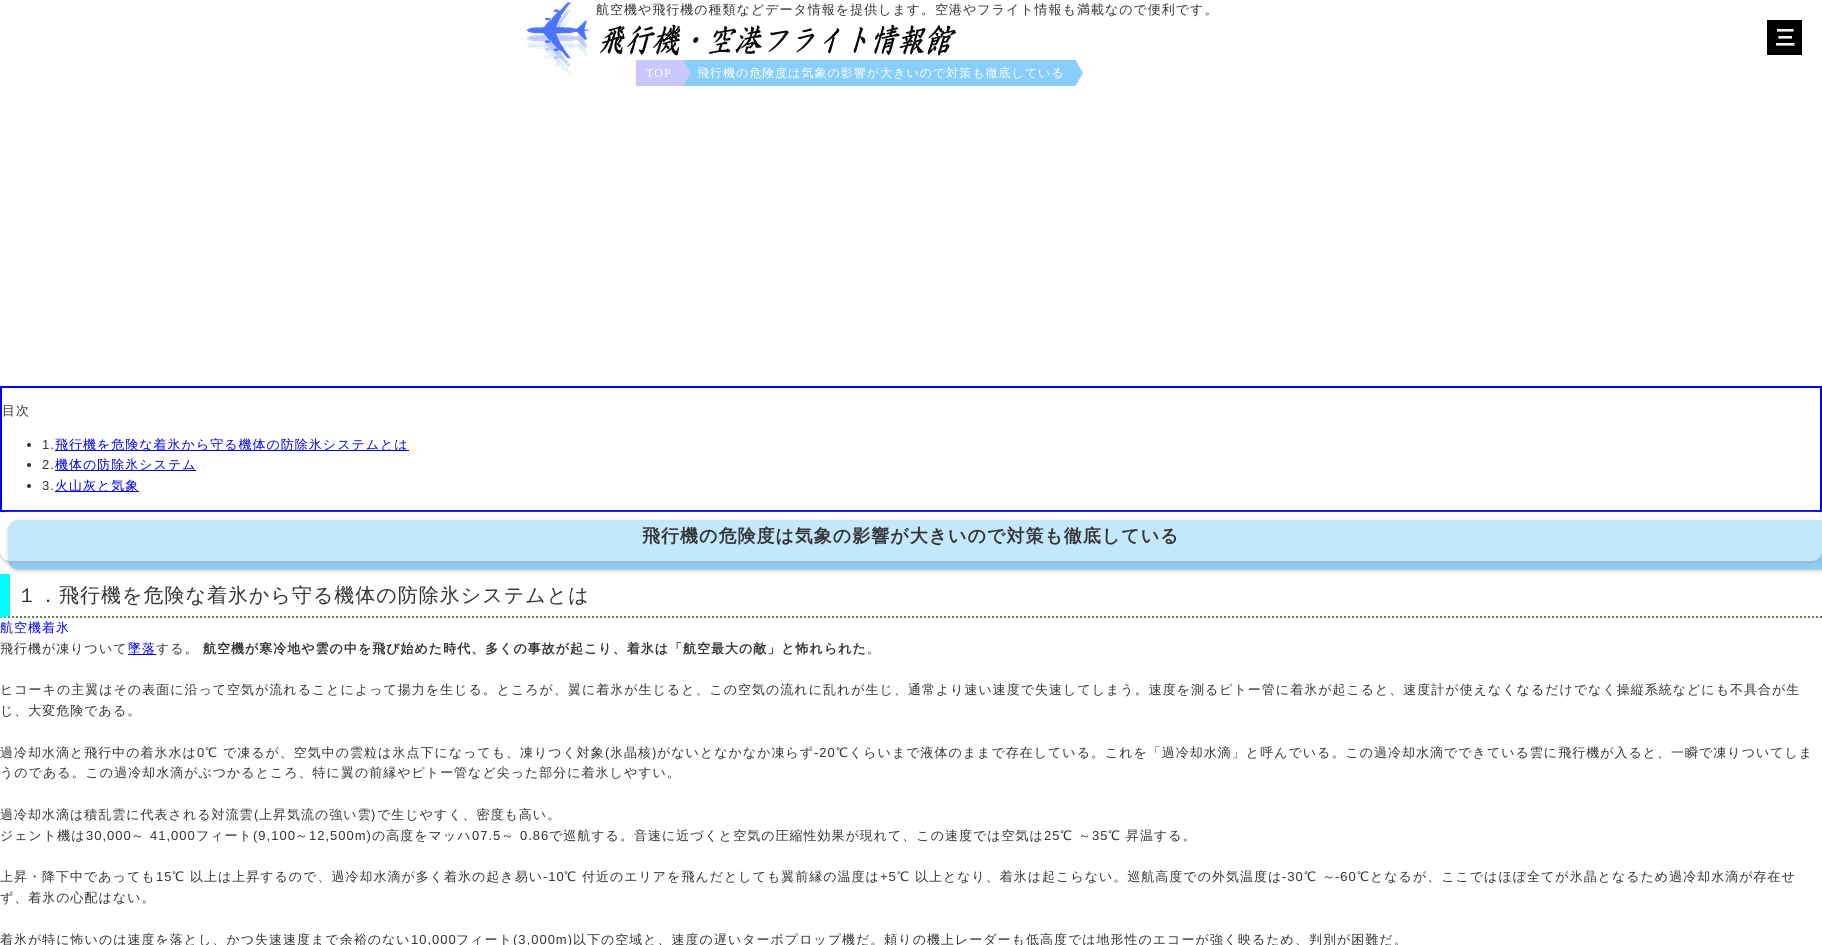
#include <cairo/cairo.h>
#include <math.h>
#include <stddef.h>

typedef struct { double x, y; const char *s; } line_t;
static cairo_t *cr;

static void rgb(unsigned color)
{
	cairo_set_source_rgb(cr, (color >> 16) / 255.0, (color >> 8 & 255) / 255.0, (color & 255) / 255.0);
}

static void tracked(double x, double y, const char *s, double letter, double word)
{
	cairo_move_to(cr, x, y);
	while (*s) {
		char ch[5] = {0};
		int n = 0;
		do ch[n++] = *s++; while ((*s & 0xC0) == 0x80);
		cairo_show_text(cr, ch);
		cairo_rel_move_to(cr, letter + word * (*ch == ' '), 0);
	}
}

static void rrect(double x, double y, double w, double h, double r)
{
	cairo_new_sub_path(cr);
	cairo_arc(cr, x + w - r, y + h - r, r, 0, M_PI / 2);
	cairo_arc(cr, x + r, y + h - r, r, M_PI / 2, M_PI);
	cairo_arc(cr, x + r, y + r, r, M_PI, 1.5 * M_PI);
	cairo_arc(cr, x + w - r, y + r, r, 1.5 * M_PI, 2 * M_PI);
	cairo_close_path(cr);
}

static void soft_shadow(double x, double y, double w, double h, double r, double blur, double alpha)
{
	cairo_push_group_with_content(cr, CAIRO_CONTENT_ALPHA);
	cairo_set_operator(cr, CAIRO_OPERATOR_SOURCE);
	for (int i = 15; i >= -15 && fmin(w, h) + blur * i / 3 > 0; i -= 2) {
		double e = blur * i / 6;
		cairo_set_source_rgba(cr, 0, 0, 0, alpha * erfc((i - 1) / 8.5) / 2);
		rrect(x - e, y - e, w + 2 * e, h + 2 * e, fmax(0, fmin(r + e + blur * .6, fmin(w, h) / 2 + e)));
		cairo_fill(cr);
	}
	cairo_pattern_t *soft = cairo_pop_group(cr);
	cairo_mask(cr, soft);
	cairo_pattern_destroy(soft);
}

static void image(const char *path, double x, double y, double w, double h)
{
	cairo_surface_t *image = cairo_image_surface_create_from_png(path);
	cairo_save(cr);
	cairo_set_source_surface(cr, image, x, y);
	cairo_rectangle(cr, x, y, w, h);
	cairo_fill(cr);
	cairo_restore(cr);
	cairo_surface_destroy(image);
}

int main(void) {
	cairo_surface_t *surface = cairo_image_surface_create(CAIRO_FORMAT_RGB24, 1822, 945);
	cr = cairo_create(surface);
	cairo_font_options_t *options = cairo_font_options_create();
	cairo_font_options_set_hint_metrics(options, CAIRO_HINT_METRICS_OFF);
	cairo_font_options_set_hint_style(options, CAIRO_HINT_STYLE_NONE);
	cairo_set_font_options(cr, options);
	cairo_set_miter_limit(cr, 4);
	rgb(0xffffff);
	cairo_paint(cr);
	image("img/1.png", 526, 1, 65, 73);
	image("img/2.png", 600, 24, 356, 32);
	image("img/3.png", 1767, 20, 35, 35);
	rgb(0xc8c8ff);
	cairo_rectangle(cr, 636, 60, 44, 26);
	cairo_fill(cr);
	rgb(0x87cefa);
	cairo_rectangle(cr, 683, 60, 389, 26);
	cairo_fill(cr);
	rgb(0xc8c8ff);
	cairo_new_path(cr);
	cairo_move_to(cr, 672, 60);
	cairo_line_to(cr, 683, 60);
	cairo_line_to(cr, 690.5, 73);
	cairo_line_to(cr, 679.5, 73);
	cairo_close_path(cr);
	cairo_fill(cr);
	cairo_new_path(cr);
	cairo_move_to(cr, 682, 60);
	cairo_line_to(cr, 683, 60);
	cairo_line_to(cr, 690.5, 73);
	cairo_line_to(cr, 689.5, 73);
	cairo_close_path(cr);
	cairo_move_to(cr, 679.5, 73);
	cairo_line_to(cr, 690.5, 73);
	cairo_line_to(cr, 683, 86);
	cairo_line_to(cr, 672, 86);
	cairo_close_path(cr);
	cairo_fill(cr);
	cairo_new_path(cr);
	cairo_move_to(cr, 689.5, 73);
	cairo_line_to(cr, 690.5, 73);
	cairo_line_to(cr, 683, 86);
	cairo_line_to(cr, 682, 86);
	cairo_close_path(cr);
	cairo_fill(cr);
	rgb(0x87cefa);
	cairo_new_path(cr);
	cairo_move_to(cr, 1064.5, 60);
	cairo_line_to(cr, 1075.5, 60);
	cairo_line_to(cr, 1083, 73);
	cairo_line_to(cr, 1072, 73);
	cairo_close_path(cr);
	cairo_fill(cr);
	rgb(0xc8c8ff);
	cairo_new_path(cr);
	cairo_move_to(cr, 1074.5, 60);
	cairo_line_to(cr, 1075.5, 60);
	cairo_line_to(cr, 1083, 73);
	cairo_line_to(cr, 1082, 73);
	cairo_close_path(cr);
	cairo_fill(cr);
	rgb(0x87cefa);
	cairo_new_path(cr);
	cairo_move_to(cr, 1072, 73);
	cairo_line_to(cr, 1083, 73);
	cairo_line_to(cr, 1075.5, 86);
	cairo_line_to(cr, 1064.5, 86);
	cairo_close_path(cr);
	cairo_fill(cr);
	rgb(0xc8c8ff);
	cairo_new_path(cr);
	cairo_move_to(cr, 1082, 73);
	cairo_line_to(cr, 1083, 73);
	cairo_line_to(cr, 1075.5, 86);
	cairo_line_to(cr, 1074.5, 86);
	cairo_close_path(cr);
	cairo_fill(cr);
	cairo_rectangle(cr, 1, 387, 1820, 124);
	rgb(0x0000ff);
	cairo_stroke(cr);
	rgb(0x333333);
	cairo_arc(cr, 29, 445, 2, 0, 2 * M_PI);
	cairo_fill(cr);
	rgb(0x0000ee);
	cairo_rectangle(cr, 55, 450, 354, 1);
	cairo_fill(cr);
	rgb(0x333333);
	cairo_arc(cr, 29, 465, 2, 0, 2 * M_PI);
	cairo_fill(cr);
	rgb(0x0000ee);
	cairo_rectangle(cr, 55, 470, 141, 1);
	cairo_fill(cr);
	rgb(0x333333);
	cairo_arc(cr, 29, 486, 2, 0, 2 * M_PI);
	cairo_fill(cr);
	rgb(0x0000ee);
	cairo_rectangle(cr, 55, 491, 84, 1);
	cairo_fill(cr);
	cairo_new_path(cr);
	cairo_move_to(cr, 0, 617);
	cairo_line_to(cr, 1822, 617);
	rgb(0x6e7955);
	cairo_set_dash(cr, (double[]){2, 2}, 2, 0);
	cairo_stroke(cr);
	rgb(0x00ffff);
	cairo_new_path(cr);
	cairo_move_to(cr, 0, 618);
	cairo_line_to(cr, 0, 574);
	cairo_line_to(cr, 10, 574);
	cairo_line_to(cr, 10, 616);
	cairo_close_path(cr);
	cairo_fill(cr);
	rgb(0xaaaaaa);
	soft_shadow(8, 521, 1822, 49, 10, 2, 1);
	rgb(0x87cefa);
	rrect(8, 520, 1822, 49, 10);
	cairo_fill(cr);
	cairo_save(cr);
	cairo_set_fill_rule(cr, CAIRO_FILL_RULE_EVEN_ODD);
	cairo_new_path(cr);
	cairo_move_to(cr, 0, 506);
	cairo_line_to(cr, 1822, 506);
	cairo_line_to(cr, 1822, 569);
	cairo_line_to(cr, 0, 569);
	cairo_close_path(cr);
	cairo_move_to(cr, 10, 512);
	cairo_line_to(cr, 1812, 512);
	cairo_curve_to(cr, 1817.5, 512, 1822, 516.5, 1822, 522);
	cairo_line_to(cr, 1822, 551);
	cairo_curve_to(cr, 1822, 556.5, 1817.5, 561, 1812, 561);
	cairo_line_to(cr, 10, 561);
	cairo_curve_to(cr, 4.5, 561, 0, 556.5, 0, 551);
	cairo_line_to(cr, 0, 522);
	cairo_curve_to(cr, 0, 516.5, 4.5, 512, 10, 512);
	cairo_close_path(cr);
	cairo_clip(cr);
	rgb(0xaaaaaa);
	soft_shadow(0, 513, 1822, 49, 10, 2, 1);
	cairo_restore(cr);
	cairo_set_source_rgba(cr, 1, 1, 1, 0.5);
	rrect(0, 512, 1822, 49, 10);
	cairo_fill(cr);
	rgb(0x0000ee);
	cairo_rectangle(cr, 128, 654, 28, 1);
	cairo_fill(cr);
	cairo_select_font_face(cr, "WenQuanYi Zen Hei Medium", CAIRO_FONT_SLANT_NORMAL, CAIRO_FONT_WEIGHT_NORMAL);
	cairo_set_font_size(cr, 13);
	rgb(0x333333);
	tracked(596, 14, "航空機や飛行機の種類などデータ情報を提供します。空港やフライト情報も満載なので便利です。", 1, 0);
	cairo_select_font_face(cr, "Liberation Serif", CAIRO_FONT_SLANT_NORMAL, CAIRO_FONT_WEIGHT_NORMAL);
	cairo_set_font_size(cr, 12);
	rgb(0xffffff);
	tracked(646, 77, "TOP", 1, 0);
	cairo_select_font_face(cr, "WenQuanYi Zen Hei Medium", CAIRO_FONT_SLANT_NORMAL, CAIRO_FONT_WEIGHT_NORMAL);
	tracked(697, 77, "飛行機の危険度は気象の影響が大きいので対策も徹底している", 1, 0);
	cairo_set_font_size(cr, 13);
	rgb(0x333333);
	tracked(2, 415, "目次", 1, 0);
	cairo_select_font_face(cr, "Liberation Sans", CAIRO_FONT_SLANT_NORMAL, CAIRO_FONT_WEIGHT_NORMAL);
	tracked(42, 449, "1.", 1, 0);
	cairo_select_font_face(cr, "WenQuanYi Zen Hei Medium", CAIRO_FONT_SLANT_NORMAL, CAIRO_FONT_WEIGHT_NORMAL);
	rgb(0x0000ee);
	tracked(55, 449, "飛行機を危険な着氷から守る機体の防除氷システムとは", 1, 0);
	cairo_select_font_face(cr, "Liberation Sans", CAIRO_FONT_SLANT_NORMAL, CAIRO_FONT_WEIGHT_NORMAL);
	rgb(0x333333);
	tracked(42, 469, "2.", 1, 0);
	cairo_select_font_face(cr, "WenQuanYi Zen Hei Medium", CAIRO_FONT_SLANT_NORMAL, CAIRO_FONT_WEIGHT_NORMAL);
	rgb(0x0000ee);
	tracked(55, 469, "機体の防除氷システム", 1, 0);
	cairo_select_font_face(cr, "Liberation Sans", CAIRO_FONT_SLANT_NORMAL, CAIRO_FONT_WEIGHT_NORMAL);
	rgb(0x333333);
	tracked(42, 490, "3.", 1, 0);
	cairo_select_font_face(cr, "WenQuanYi Zen Hei Medium", CAIRO_FONT_SLANT_NORMAL, CAIRO_FONT_WEIGHT_NORMAL);
	rgb(0x0000ee);
	tracked(55, 490, "火山灰と気象", 1, 0);
	cairo_select_font_face(cr, "WenQuanYi Zen Hei", CAIRO_FONT_SLANT_NORMAL, CAIRO_FONT_WEIGHT_BOLD);
	cairo_set_font_size(cr, 18);
	rgb(0x333333);
	tracked(642, 542, "飛行機の危険度は気象の影響が大きいので対策も徹底している", 1, 0);
	cairo_select_font_face(cr, "WenQuanYi Zen Hei Medium", CAIRO_FONT_SLANT_NORMAL, CAIRO_FONT_WEIGHT_NORMAL);
	cairo_set_font_size(cr, 20);
	tracked(17, 602, "１．飛行機を危険な着氷から守る機体の防除氷システムとは", 1, 0);
	cairo_set_font_size(cr, 13);
	rgb(0x0000ff);
	tracked(0, 632, "航空機着氷", 1, 0);
	rgb(0x333333);
	tracked(0, 653, "飛行機が凍りついて", 1, 0);
	rgb(0x0000ee);
	tracked(128, 653, "墜落", 1, 0);
	rgb(0x333333);
	tracked(156, 653, "する。", 1, 0);
	cairo_select_font_face(cr, "WenQuanYi Zen Hei", CAIRO_FONT_SLANT_NORMAL, CAIRO_FONT_WEIGHT_BOLD);
	tracked(203, 653, "航空機が寒冷地や雲の中を飛び始めた時代、多くの事故が起こり、着氷は「航空最大の敵」と怖れられた", 1, 0);
	cairo_select_font_face(cr, "WenQuanYi Zen Hei Medium", CAIRO_FONT_SLANT_NORMAL, CAIRO_FONT_WEIGHT_NORMAL);
	{
		static const line_t items[] = {
			{867, 653, "。"},
			{0, 694, "ヒコーキの主翼はその表面に沿って空気が流れることによって揚力を生じる。ところが、翼に着氷が生じると、この空気の流れに乱れが生じ、通常より速い速度で失速してしまう。速度を測るピトー管に着氷が起こると、速度計が使えなくなるだけでなく操縦系統などにも不具合が生"},
			{0, 715, "じ、大変危険である。"},
			{0, 757, "過冷却水滴と飛行中の着氷水は"},
		};
		for (size_t i = 0; i < sizeof items / sizeof *items; i++) {
			tracked(items[i].x, items[i].y, items[i].s, 1, 0);
		}
	}
	cairo_select_font_face(cr, "Liberation Sans", CAIRO_FONT_SLANT_NORMAL, CAIRO_FONT_WEIGHT_NORMAL);
	tracked(197, 757, "0", 1, 0);
	cairo_select_font_face(cr, "WenQuanYi Zen Hei Medium", CAIRO_FONT_SLANT_NORMAL, CAIRO_FONT_WEIGHT_NORMAL);
	tracked(205, 757, "℃ で凍るが、空気中の雲粒は氷点下になっても、凍りつく対象", 1, 0);
	cairo_select_font_face(cr, "Liberation Sans", CAIRO_FONT_SLANT_NORMAL, CAIRO_FONT_WEIGHT_NORMAL);
	tracked(605, 757, "(", 1, 0);
	cairo_select_font_face(cr, "WenQuanYi Zen Hei Medium", CAIRO_FONT_SLANT_NORMAL, CAIRO_FONT_WEIGHT_NORMAL);
	tracked(610, 757, "氷晶核", 1, 0);
	cairo_select_font_face(cr, "Liberation Sans", CAIRO_FONT_SLANT_NORMAL, CAIRO_FONT_WEIGHT_NORMAL);
	tracked(652, 757, ")", 1, 0);
	cairo_select_font_face(cr, "WenQuanYi Zen Hei Medium", CAIRO_FONT_SLANT_NORMAL, CAIRO_FONT_WEIGHT_NORMAL);
	tracked(657, 757, "がないとなかなか凍らず", 1, 0);
	cairo_select_font_face(cr, "Liberation Sans", CAIRO_FONT_SLANT_NORMAL, CAIRO_FONT_WEIGHT_NORMAL);
	tracked(814, 757, "-20", 1, 0);
	cairo_select_font_face(cr, "WenQuanYi Zen Hei Medium", CAIRO_FONT_SLANT_NORMAL, CAIRO_FONT_WEIGHT_NORMAL);
	{
		static const line_t items[] = {
			{836, 757, "℃くらいまで液体のままで存在している。これを「過冷却水滴」と呼んでいる。この過冷却水滴でできている雲に飛行機が入ると、一瞬で凍りついてしま"},
			{0, 777, "うのである。この過冷却水滴がぶつかるところ、特に翼の前縁やピトー管など尖った部分に着氷しやすい。"},
			{0, 819, "過冷却水滴は積乱雲に代表される対流雲"},
		};
		for (size_t i = 0; i < sizeof items / sizeof *items; i++) {
			tracked(items[i].x, items[i].y, items[i].s, 1, 0);
		}
	}
	cairo_select_font_face(cr, "Liberation Sans", CAIRO_FONT_SLANT_NORMAL, CAIRO_FONT_WEIGHT_NORMAL);
	tracked(254, 819, "(", 1, 0);
	cairo_select_font_face(cr, "WenQuanYi Zen Hei Medium", CAIRO_FONT_SLANT_NORMAL, CAIRO_FONT_WEIGHT_NORMAL);
	tracked(259, 819, "上昇気流の強い雲", 1, 0);
	cairo_select_font_face(cr, "Liberation Sans", CAIRO_FONT_SLANT_NORMAL, CAIRO_FONT_WEIGHT_NORMAL);
	tracked(371, 819, ")", 1, 0);
	cairo_select_font_face(cr, "WenQuanYi Zen Hei Medium", CAIRO_FONT_SLANT_NORMAL, CAIRO_FONT_WEIGHT_NORMAL);
	tracked(377, 819, "で生じやすく、密度も高い。", 1, 0);
	tracked(0, 840, "ジェント機は", 1, 0);
	cairo_select_font_face(cr, "Liberation Sans", CAIRO_FONT_SLANT_NORMAL, CAIRO_FONT_WEIGHT_NORMAL);
	tracked(86, 840, "30,000", 1, 0);
	cairo_select_font_face(cr, "WenQuanYi Zen Hei Medium", CAIRO_FONT_SLANT_NORMAL, CAIRO_FONT_WEIGHT_NORMAL);
	tracked(131, 840, "～", 1, 0);
	cairo_select_font_face(cr, "Liberation Sans", CAIRO_FONT_SLANT_NORMAL, CAIRO_FONT_WEIGHT_NORMAL);
	tracked(150, 840, "41,000", 1, 0);
	cairo_select_font_face(cr, "WenQuanYi Zen Hei Medium", CAIRO_FONT_SLANT_NORMAL, CAIRO_FONT_WEIGHT_NORMAL);
	tracked(196, 840, "フィート", 1, 0);
	cairo_select_font_face(cr, "Liberation Sans", CAIRO_FONT_SLANT_NORMAL, CAIRO_FONT_WEIGHT_NORMAL);
	tracked(253, 840, "(9,100", 1, 0);
	cairo_select_font_face(cr, "WenQuanYi Zen Hei Medium", CAIRO_FONT_SLANT_NORMAL, CAIRO_FONT_WEIGHT_NORMAL);
	tracked(295, 840, "～", 1, 0);
	cairo_select_font_face(cr, "Liberation Sans", CAIRO_FONT_SLANT_NORMAL, CAIRO_FONT_WEIGHT_NORMAL);
	tracked(309, 840, "12,500m)", 1, 0);
	cairo_select_font_face(cr, "WenQuanYi Zen Hei Medium", CAIRO_FONT_SLANT_NORMAL, CAIRO_FONT_WEIGHT_NORMAL);
	tracked(372, 840, "の高度をマッハ", 1, 0);
	cairo_select_font_face(cr, "Liberation Sans", CAIRO_FONT_SLANT_NORMAL, CAIRO_FONT_WEIGHT_NORMAL);
	tracked(472, 840, "07.5", 1, 0);
	cairo_select_font_face(cr, "WenQuanYi Zen Hei Medium", CAIRO_FONT_SLANT_NORMAL, CAIRO_FONT_WEIGHT_NORMAL);
	tracked(501, 840, "～", 1, 0);
	cairo_select_font_face(cr, "Liberation Sans", CAIRO_FONT_SLANT_NORMAL, CAIRO_FONT_WEIGHT_NORMAL);
	tracked(520, 840, "0.86", 1, 0);
	cairo_select_font_face(cr, "WenQuanYi Zen Hei Medium", CAIRO_FONT_SLANT_NORMAL, CAIRO_FONT_WEIGHT_NORMAL);
	tracked(549, 840, "で巡航する。音速に近づくと空気の圧縮性効果が現れて、この速度では空気は", 1, 0);
	cairo_select_font_face(cr, "Liberation Sans", CAIRO_FONT_SLANT_NORMAL, CAIRO_FONT_WEIGHT_NORMAL);
	tracked(1044, 840, "25", 1, 0);
	cairo_select_font_face(cr, "WenQuanYi Zen Hei Medium", CAIRO_FONT_SLANT_NORMAL, CAIRO_FONT_WEIGHT_NORMAL);
	tracked(1060, 840, "℃ ～", 1, 0);
	cairo_select_font_face(cr, "Liberation Sans", CAIRO_FONT_SLANT_NORMAL, CAIRO_FONT_WEIGHT_NORMAL);
	tracked(1092, 840, "35", 1, 0);
	cairo_select_font_face(cr, "WenQuanYi Zen Hei Medium", CAIRO_FONT_SLANT_NORMAL, CAIRO_FONT_WEIGHT_NORMAL);
	tracked(1108, 840, "℃ 昇温する。", 1, 0);
	tracked(0, 881, "上昇・降下中であっても", 1, 0);
	cairo_select_font_face(cr, "Liberation Sans", CAIRO_FONT_SLANT_NORMAL, CAIRO_FONT_WEIGHT_NORMAL);
	tracked(156, 881, "15", 1, 0);
	cairo_select_font_face(cr, "WenQuanYi Zen Hei Medium", CAIRO_FONT_SLANT_NORMAL, CAIRO_FONT_WEIGHT_NORMAL);
	tracked(172, 881, "℃ 以上は上昇するので、過冷却水滴が多く着氷の起き易い", 1, 0);
	cairo_select_font_face(cr, "Liberation Sans", CAIRO_FONT_SLANT_NORMAL, CAIRO_FONT_WEIGHT_NORMAL);
	tracked(543, 881, "-10", 1, 0);
	cairo_select_font_face(cr, "WenQuanYi Zen Hei Medium", CAIRO_FONT_SLANT_NORMAL, CAIRO_FONT_WEIGHT_NORMAL);
	tracked(564, 881, "℃ 付近のエリアを飛んだとしても翼前縁の温度は", 1, 0);
	cairo_select_font_face(cr, "Liberation Sans", CAIRO_FONT_SLANT_NORMAL, CAIRO_FONT_WEIGHT_NORMAL);
	tracked(880, 881, "+5", 1, 0);
	cairo_select_font_face(cr, "WenQuanYi Zen Hei Medium", CAIRO_FONT_SLANT_NORMAL, CAIRO_FONT_WEIGHT_NORMAL);
	tracked(897, 881, "℃ 以上となり、着氷は起こらない。巡航高度での外気温度は", 1, 0);
	cairo_select_font_face(cr, "Liberation Sans", CAIRO_FONT_SLANT_NORMAL, CAIRO_FONT_WEIGHT_NORMAL);
	tracked(1282, 881, "-30", 1, 0);
	cairo_select_font_face(cr, "WenQuanYi Zen Hei Medium", CAIRO_FONT_SLANT_NORMAL, CAIRO_FONT_WEIGHT_NORMAL);
	tracked(1304, 881, "℃ ～", 1, 0);
	cairo_select_font_face(cr, "Liberation Sans", CAIRO_FONT_SLANT_NORMAL, CAIRO_FONT_WEIGHT_NORMAL);
	tracked(1335, 881, "-60", 1, 0);
	cairo_select_font_face(cr, "WenQuanYi Zen Hei Medium", CAIRO_FONT_SLANT_NORMAL, CAIRO_FONT_WEIGHT_NORMAL);
	{
		static const line_t items[] = {
			{1357, 881, "℃となるが、ここではほぼ全てが氷晶となるため過冷却水滴が存在せ"},
			{0, 902, "ず、着氷の心配はない。"},
			{0, 944, "着氷が特に怖いのは速度を落とし、かつ失速速度まで余裕のない"},
		};
		for (size_t i = 0; i < sizeof items / sizeof *items; i++) {
			tracked(items[i].x, items[i].y, items[i].s, 1, 0);
		}
	}
	cairo_select_font_face(cr, "Liberation Sans", CAIRO_FONT_SLANT_NORMAL, CAIRO_FONT_WEIGHT_NORMAL);
	tracked(411, 944, "10,000", 1, 0);
	cairo_select_font_face(cr, "WenQuanYi Zen Hei Medium", CAIRO_FONT_SLANT_NORMAL, CAIRO_FONT_WEIGHT_NORMAL);
	tracked(456, 944, "フィート", 1, 0);
	cairo_select_font_face(cr, "Liberation Sans", CAIRO_FONT_SLANT_NORMAL, CAIRO_FONT_WEIGHT_NORMAL);
	tracked(513, 944, "(3,000m)", 1, 0);
	cairo_select_font_face(cr, "WenQuanYi Zen Hei Medium", CAIRO_FONT_SLANT_NORMAL, CAIRO_FONT_WEIGHT_NORMAL);
	tracked(573, 944, "以下の空域と、速度の遅いターボプロップ機だ。頼りの機上レーダーも低高度では地形性のエコーが強く映るため、判別が困難だ。", 1, 0);
	cairo_surface_write_to_png(surface, "page.png");
	cairo_font_options_destroy(options);
	cairo_destroy(cr);
	cairo_surface_destroy(surface);
	return 0;
}
